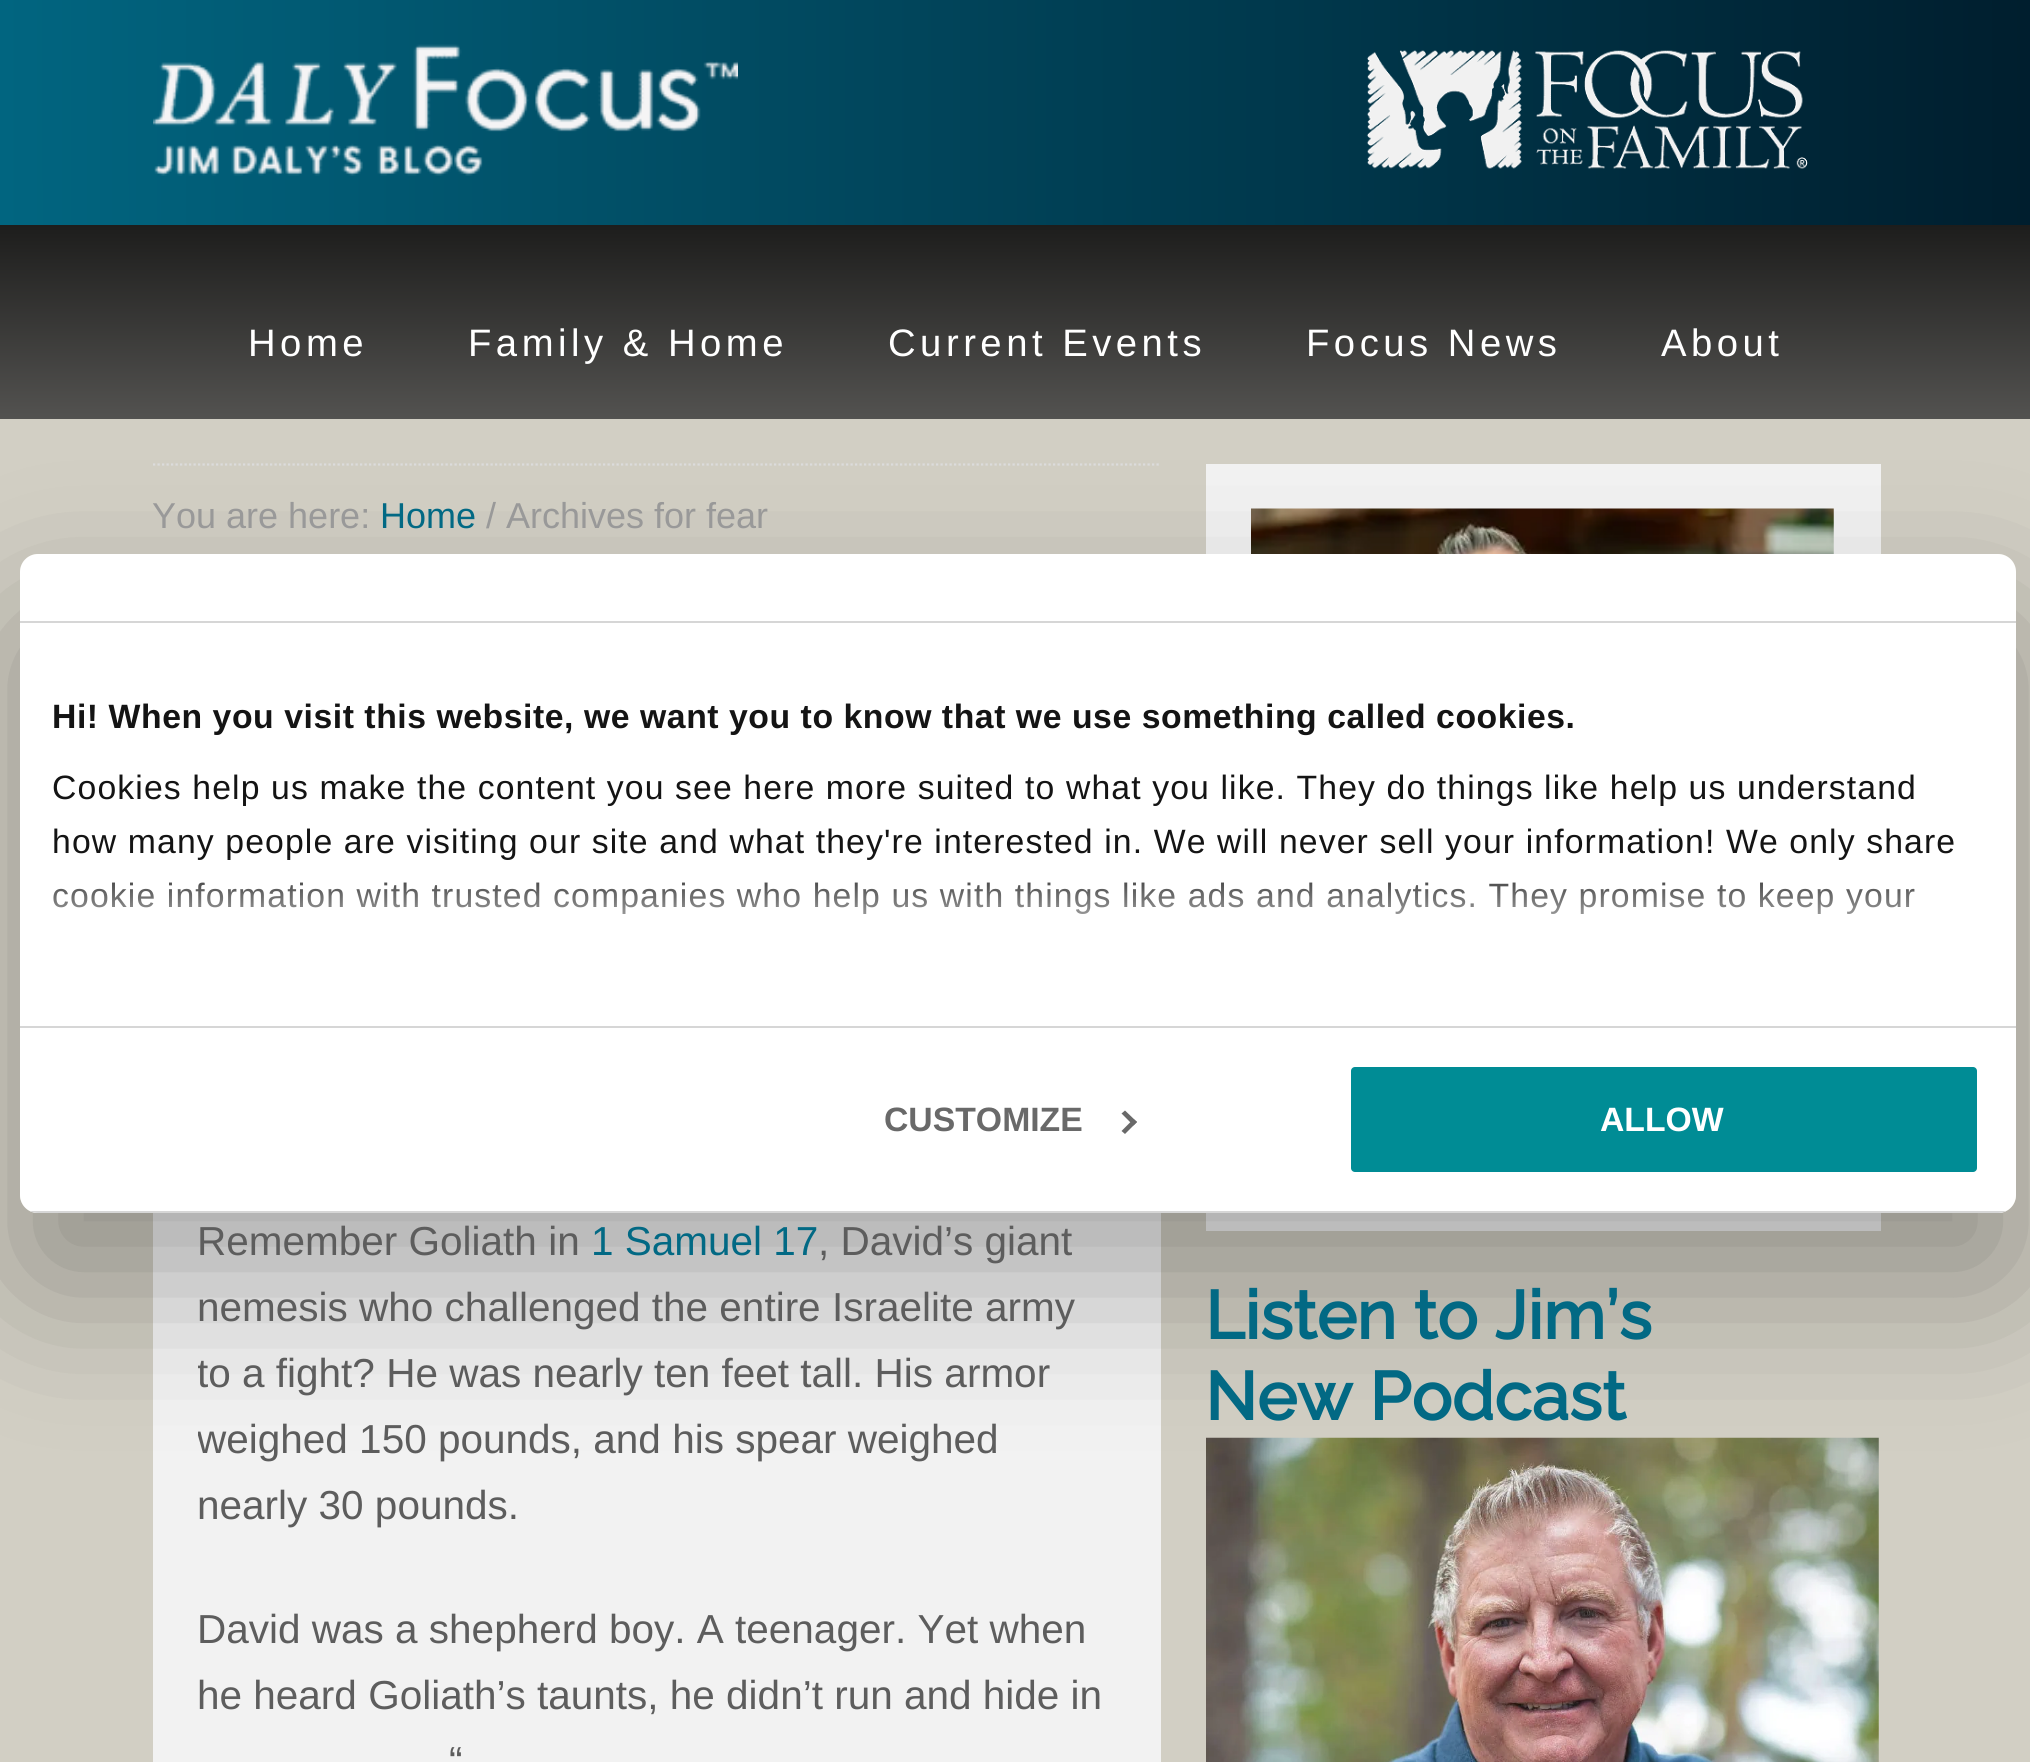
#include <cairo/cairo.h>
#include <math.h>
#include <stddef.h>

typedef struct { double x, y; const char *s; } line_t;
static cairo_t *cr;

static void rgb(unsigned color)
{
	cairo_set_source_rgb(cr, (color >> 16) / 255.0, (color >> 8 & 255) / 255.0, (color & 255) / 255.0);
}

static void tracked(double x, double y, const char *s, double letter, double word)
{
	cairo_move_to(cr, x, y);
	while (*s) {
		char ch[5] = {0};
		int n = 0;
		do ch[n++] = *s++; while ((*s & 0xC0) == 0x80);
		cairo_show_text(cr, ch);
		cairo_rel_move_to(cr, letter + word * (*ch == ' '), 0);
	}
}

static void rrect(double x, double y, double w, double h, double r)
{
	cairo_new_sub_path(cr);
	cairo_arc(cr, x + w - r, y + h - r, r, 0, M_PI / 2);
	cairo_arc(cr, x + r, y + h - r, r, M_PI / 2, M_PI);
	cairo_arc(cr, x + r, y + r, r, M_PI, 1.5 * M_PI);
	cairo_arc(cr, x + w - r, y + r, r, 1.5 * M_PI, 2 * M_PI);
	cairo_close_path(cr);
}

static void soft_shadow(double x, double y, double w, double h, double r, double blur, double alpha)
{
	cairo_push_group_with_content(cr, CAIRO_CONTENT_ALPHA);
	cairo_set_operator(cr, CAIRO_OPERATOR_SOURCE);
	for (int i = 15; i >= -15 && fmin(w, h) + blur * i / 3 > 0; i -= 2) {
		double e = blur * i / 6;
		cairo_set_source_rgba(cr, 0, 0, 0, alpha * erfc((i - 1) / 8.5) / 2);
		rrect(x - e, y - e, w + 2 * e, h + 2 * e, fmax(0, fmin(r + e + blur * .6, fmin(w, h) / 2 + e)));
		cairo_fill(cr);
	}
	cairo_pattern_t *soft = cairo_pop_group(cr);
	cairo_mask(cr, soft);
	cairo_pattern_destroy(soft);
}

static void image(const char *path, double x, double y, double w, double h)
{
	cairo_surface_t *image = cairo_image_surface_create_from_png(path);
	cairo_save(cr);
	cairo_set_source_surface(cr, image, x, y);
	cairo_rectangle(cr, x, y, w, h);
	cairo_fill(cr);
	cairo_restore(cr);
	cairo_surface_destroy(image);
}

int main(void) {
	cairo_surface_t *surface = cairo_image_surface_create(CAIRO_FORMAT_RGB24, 2030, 1762);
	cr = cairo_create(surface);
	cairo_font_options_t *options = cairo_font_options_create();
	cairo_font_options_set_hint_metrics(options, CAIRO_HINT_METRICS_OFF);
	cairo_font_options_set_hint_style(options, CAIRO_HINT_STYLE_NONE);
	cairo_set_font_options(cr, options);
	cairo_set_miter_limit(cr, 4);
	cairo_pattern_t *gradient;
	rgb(0xd2cfc4);
	cairo_paint(cr);
	gradient = cairo_pattern_create_linear(0, 113, 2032, 112);
	cairo_pattern_add_color_stop_rgba(gradient, 0, 0.004, 0.396, 0.502, 1);
	cairo_pattern_add_color_stop_rgba(gradient, 1, 0, 0.118, 0.18, 1);
	cairo_set_source(cr, gradient);
	cairo_pattern_destroy(gradient);
	cairo_rectangle(cr, 0, 0, 2030, 225);
	cairo_fill(cr);
	image("img/1.png", 153, 44, 585, 132);
	image("img/2.png", 1366, 50, 442, 119);
	gradient = cairo_pattern_create_linear(1016, 225, 1016, 419);
	cairo_pattern_add_color_stop_rgba(gradient, 0, 0.114, 0.114, 0.11, 1);
	cairo_pattern_add_color_stop_rgba(gradient, 1, 0.325, 0.322, 0.314, 1);
	cairo_set_source(cr, gradient);
	cairo_pattern_destroy(gradient);
	cairo_rectangle(cr, 0, 225, 2030, 194);
	cairo_fill(cr);
	cairo_new_path(cr);
	cairo_move_to(cr, 153, 464.5);
	cairo_line_to(cr, 1161, 464.5);
	rgb(0xdddddd);
	cairo_set_line_width(cr, 2.2);
	cairo_set_dash(cr, (double[]){2.25, 2.25}, 2, 0);
	cairo_stroke(cr);
	rgb(0xf2f2f2);
	cairo_rectangle(cr, 153, 1213, 1008, 549);
	cairo_fill(cr);
	cairo_rectangle(cr, 1206, 464, 675, 767);
	cairo_fill(cr);
	image("img/3.png", 1251, 508, 583, 46);
	image("img/4.png", 1206, 1437, 673, 325);
	cairo_save(cr);
	cairo_set_fill_rule(cr, CAIRO_FILL_RULE_EVEN_ODD);
	cairo_new_path(cr);
	cairo_move_to(cr, 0, 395);
	cairo_line_to(cr, 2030, 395);
	cairo_line_to(cr, 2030, 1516);
	cairo_line_to(cr, 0, 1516);
	cairo_close_path(cr);
	cairo_move_to(cr, 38, 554);
	cairo_line_to(cr, 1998, 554);
	cairo_curve_to(cr, 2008, 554, 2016, 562, 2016, 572);
	cairo_line_to(cr, 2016, 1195);
	cairo_curve_to(cr, 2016, 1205, 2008, 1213, 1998, 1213);
	cairo_line_to(cr, 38, 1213);
	cairo_curve_to(cr, 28, 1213, 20, 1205, 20, 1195);
	cairo_line_to(cr, 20, 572);
	cairo_curve_to(cr, 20, 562, 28, 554, 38, 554);
	cairo_close_path(cr);
	cairo_clip(cr);
	rgb(0x000000);
	soft_shadow(20, 626, 1996, 659, 18, 76.5, 0.3);
	cairo_restore(cr);
	rgb(0xffffff);
	rrect(20, 554, 1996, 659, 18);
	cairo_fill(cr);
	rgb(0xd6d6d6);
	cairo_rectangle(cr, 20, 621, 1996, 2);
	cairo_fill(cr);
	cairo_rectangle(cr, 20, 1026, 1996, 2);
	cairo_fill(cr);
	cairo_save(cr);
	rrect(20, 554, 1996, 659, 18);
	cairo_clip(cr);
	cairo_rectangle(cr, 30, 1211, 1976, 2);
	cairo_fill(cr);
	cairo_restore(cr);
	rgb(0x696969);
	cairo_new_path(cr);
	cairo_move_to(cr, 1125, 1110.5);
	cairo_line_to(cr, 1137, 1122);
	cairo_line_to(cr, 1133.5, 1125.5);
	cairo_line_to(cr, 1121.5, 1113.5);
	cairo_close_path(cr);
	cairo_fill(cr);
	cairo_new_path(cr);
	cairo_move_to(cr, 1133.5, 1119);
	cairo_line_to(cr, 1137, 1122);
	cairo_line_to(cr, 1125, 1134);
	cairo_line_to(cr, 1121.5, 1131);
	cairo_close_path(cr);
	cairo_fill(cr);
	rgb(0x008c95);
	rrect(1348.5, 1064.5, 631, 110, 6.5);
	cairo_fill_preserve(cr);
	rgb(0xffffff);
	cairo_set_line_width(cr, 5);
	cairo_set_dash(cr, NULL, 0, 0);
	cairo_stroke(cr);
	cairo_select_font_face(cr, "Liberation Sans", CAIRO_FONT_SLANT_NORMAL, CAIRO_FONT_WEIGHT_NORMAL);
	cairo_set_font_size(cr, 38.25);
	{
		static const line_t items[] = {
			{248, 356, "Home"},
			{468, 356, "Family & Home"},
			{888, 356, "Current Events"},
			{1306, 356, "Focus News"},
			{1661, 356, "About"},
		};
		for (size_t i = 0; i < sizeof items / sizeof *items; i++) {
			tracked(items[i].x, items[i].y, items[i].s, 4.5, 0);
		}
	}
	cairo_set_font_size(cr, 36);
	rgb(0x999999);
	cairo_move_to(cr, 152, 528);
	cairo_show_text(cr, "You are here:");
	rgb(0x026984);
	cairo_move_to(cr, 380, 528);
	cairo_show_text(cr, "Home");
	rgb(0x999999);
	cairo_move_to(cr, 486, 528);
	cairo_show_text(cr, "/ Archives for fear");
	cairo_set_font_size(cr, 40.5);
	rgb(0x5d5d5d);
	cairo_move_to(cr, 197, 1255);
	cairo_show_text(cr, "Remember Goliath in");
	rgb(0x026984);
	cairo_move_to(cr, 591, 1255);
	cairo_show_text(cr, "1 Samuel 17");
	rgb(0x5d5d5d);
	cairo_move_to(cr, 818, 1255);
	cairo_show_text(cr, ", David’s giant");
	cairo_move_to(cr, 197, 1321);
	cairo_show_text(cr, "nemesis who challenged the entire Israelite army");
	cairo_save(cr);
	cairo_rectangle(cr, 198, 779, 918, 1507);
	cairo_clip(cr);
	cairo_move_to(cr, 197, 1387);
	cairo_show_text(cr, "to a fight? He was nearly ten feet tall. His armor");
	cairo_move_to(cr, 197, 1453);
	cairo_show_text(cr, "weighed 150 pounds, and his spear weighed");
	cairo_restore(cr);
	{
		static const line_t items[] = {
			{197, 1519, "nearly 30 pounds."},
			{197, 1643, "David was a shepherd boy. A teenager. Yet when"},
			{197, 1709, "he heard Goliath’s taunts, he didn’t run and hide in"},
			{449, 1775, "“"},
		};
		for (size_t i = 0; i < sizeof items / sizeof *items; i++) {
			cairo_move_to(cr, items[i].x, items[i].y);
			cairo_show_text(cr, items[i].s);
		}
	}
	cairo_select_font_face(cr, "Raleway", CAIRO_FONT_SLANT_NORMAL, CAIRO_FONT_WEIGHT_BOLD);
	cairo_set_font_size(cr, 67.5);
	rgb(0x026984);
	cairo_move_to(cr, 1205, 1339);
	cairo_show_text(cr, "Listen to Jim’s");
	cairo_move_to(cr, 1205, 1420);
	cairo_show_text(cr, "New Podcast");
	cairo_select_font_face(cr, "Liberation Sans", CAIRO_FONT_SLANT_NORMAL, CAIRO_FONT_WEIGHT_BOLD);
	cairo_set_font_size(cr, 33.75);
	rgb(0x141414);
	tracked(52, 728, "Hi! When you visit this website, we want you to know that we use something called cookies.", 0.55, 0);
	cairo_select_font_face(cr, "Liberation Sans", CAIRO_FONT_SLANT_NORMAL, CAIRO_FONT_WEIGHT_NORMAL);
	{
		static const line_t items[] = {
			{52, 799, "Cookies help us make the content you see here more suited to what you like. They do things like help us understand"},
			{52, 853, "how many people are visiting our site and what they're interested in. We will never sell your information! We only share"},
			{52, 907, "cookie information with trusted companies who help us with things like ads and analytics. They promise to keep your"},
		};
		for (size_t i = 0; i < sizeof items / sizeof *items; i++) {
			tracked(items[i].x, items[i].y, items[i].s, 1.12, 0);
		}
	}
	gradient = cairo_pattern_create_linear(1002, 1025, 1002, 856);
	cairo_pattern_add_color_stop_rgba(gradient, 0, 1, 1, 1, 1);
	cairo_pattern_add_color_stop_rgba(gradient, 0.5, 1, 1, 1, 0.8);
	cairo_pattern_add_color_stop_rgba(gradient, 1, 1, 1, 1, 0);
	cairo_set_source(cr, gradient);
	cairo_pattern_destroy(gradient);
	cairo_rectangle(cr, 53, 858, 1862, 56);
	cairo_fill(cr);
	cairo_select_font_face(cr, "Liberation Sans", CAIRO_FONT_SLANT_NORMAL, CAIRO_FONT_WEIGHT_BOLD);
	rgb(0x696969);
	cairo_move_to(cr, 884, 1131);
	cairo_show_text(cr, "CUSTOMIZE");
	rgb(0xffffff);
	cairo_move_to(cr, 1600, 1131);
	cairo_show_text(cr, "ALLOW");
	cairo_surface_write_to_png(surface, "page.png");
	cairo_font_options_destroy(options);
	cairo_destroy(cr);
	cairo_surface_destroy(surface);
	return 0;
}
